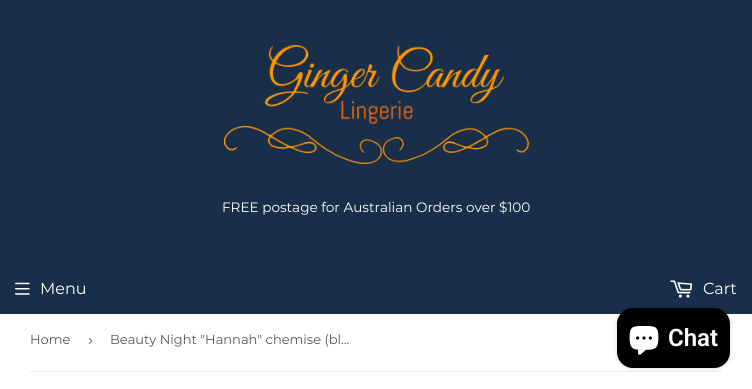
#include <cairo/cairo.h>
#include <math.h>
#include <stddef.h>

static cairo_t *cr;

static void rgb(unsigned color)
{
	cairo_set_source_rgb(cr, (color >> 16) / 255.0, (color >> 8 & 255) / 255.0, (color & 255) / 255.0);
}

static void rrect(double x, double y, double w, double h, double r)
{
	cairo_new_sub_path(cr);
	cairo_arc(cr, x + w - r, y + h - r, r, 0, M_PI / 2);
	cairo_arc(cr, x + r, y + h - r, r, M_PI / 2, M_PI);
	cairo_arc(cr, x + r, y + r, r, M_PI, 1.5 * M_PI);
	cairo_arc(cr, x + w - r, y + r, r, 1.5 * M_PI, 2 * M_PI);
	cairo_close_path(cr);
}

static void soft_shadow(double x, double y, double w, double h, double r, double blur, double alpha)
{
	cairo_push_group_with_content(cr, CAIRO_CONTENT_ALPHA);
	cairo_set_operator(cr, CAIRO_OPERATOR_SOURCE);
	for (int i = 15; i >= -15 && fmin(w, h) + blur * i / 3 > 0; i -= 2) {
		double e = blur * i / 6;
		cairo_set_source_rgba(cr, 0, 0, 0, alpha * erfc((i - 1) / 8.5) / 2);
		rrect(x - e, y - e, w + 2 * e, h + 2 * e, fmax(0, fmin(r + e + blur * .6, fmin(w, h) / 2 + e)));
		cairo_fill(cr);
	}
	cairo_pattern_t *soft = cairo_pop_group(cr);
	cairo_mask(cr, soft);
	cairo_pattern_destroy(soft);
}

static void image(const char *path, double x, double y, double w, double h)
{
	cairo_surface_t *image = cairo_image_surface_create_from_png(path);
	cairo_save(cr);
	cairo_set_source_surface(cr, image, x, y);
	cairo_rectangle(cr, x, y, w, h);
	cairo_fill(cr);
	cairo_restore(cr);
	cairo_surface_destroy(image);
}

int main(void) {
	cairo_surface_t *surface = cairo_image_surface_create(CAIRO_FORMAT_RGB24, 752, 389);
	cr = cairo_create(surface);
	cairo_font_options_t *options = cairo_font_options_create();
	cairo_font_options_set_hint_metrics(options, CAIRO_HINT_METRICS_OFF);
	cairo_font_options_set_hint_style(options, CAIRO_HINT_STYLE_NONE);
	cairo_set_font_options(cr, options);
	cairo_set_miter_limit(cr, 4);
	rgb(0xffffff);
	cairo_paint(cr);
	rgb(0x182e49);
	cairo_rectangle(cr, 0, 0, 752, 314);
	cairo_fill(cr);
	image("img/1.png", 224, 45, 305, 119);
	image("img/2.png", 15, 282, 15, 13);
	image("img/3.png", 670, 280, 23, 18);
	rgb(0xececec);
	cairo_rectangle(cr, 30, 371, 692, 1);
	cairo_fill(cr);
	rgb(0x000000);
	soft_shadow(617, 308, 113, 60, 16, 2.5, 0.15);
	rgb(0x000000);
	rrect(617, 308, 113, 60, 16);
	cairo_fill(cr);
	image("img/4.png", 629, 326, 30, 29);
	cairo_select_font_face(cr, "Montserrat", CAIRO_FONT_SLANT_NORMAL, CAIRO_FONT_WEIGHT_NORMAL);
	cairo_set_font_size(cr, 13.6);
	rgb(0xffffff);
	cairo_move_to(cr, 222, 212);
	cairo_show_text(cr, "FREE postage for Australian Orders over $100");
	cairo_set_font_size(cr, 16);
	cairo_move_to(cr, 40, 294);
	cairo_show_text(cr, "Menu");
	cairo_move_to(cr, 703, 294);
	cairo_show_text(cr, "Cart");
	cairo_set_font_size(cr, 13);
	rgb(0x585858);
	cairo_move_to(cr, 30, 344);
	cairo_show_text(cr, "Home");
	cairo_select_font_face(cr, "Liberation Sans", CAIRO_FONT_SLANT_NORMAL, CAIRO_FONT_WEIGHT_NORMAL);
	cairo_set_font_size(cr, 15);
	rgb(0x767676);
	cairo_move_to(cr, 88, 345);
	cairo_show_text(cr, "›");
	cairo_select_font_face(cr, "Montserrat", CAIRO_FONT_SLANT_NORMAL, CAIRO_FONT_WEIGHT_NORMAL);
	cairo_set_font_size(cr, 13);
	rgb(0x585858);
	cairo_move_to(cr, 110, 344);
	cairo_show_text(cr, "Beauty Night \"Hannah\" chemise (bl…");
	cairo_select_font_face(cr, "Roboto SemiBold", CAIRO_FONT_SLANT_NORMAL, CAIRO_FONT_WEIGHT_NORMAL);
	cairo_set_font_size(cr, 24);
	rgb(0xffffff);
	cairo_move_to(cr, 668, 346);
	cairo_show_text(cr, "Chat");
	cairo_surface_write_to_png(surface, "page.png");
	cairo_font_options_destroy(options);
	cairo_destroy(cr);
	cairo_surface_destroy(surface);
	return 0;
}
